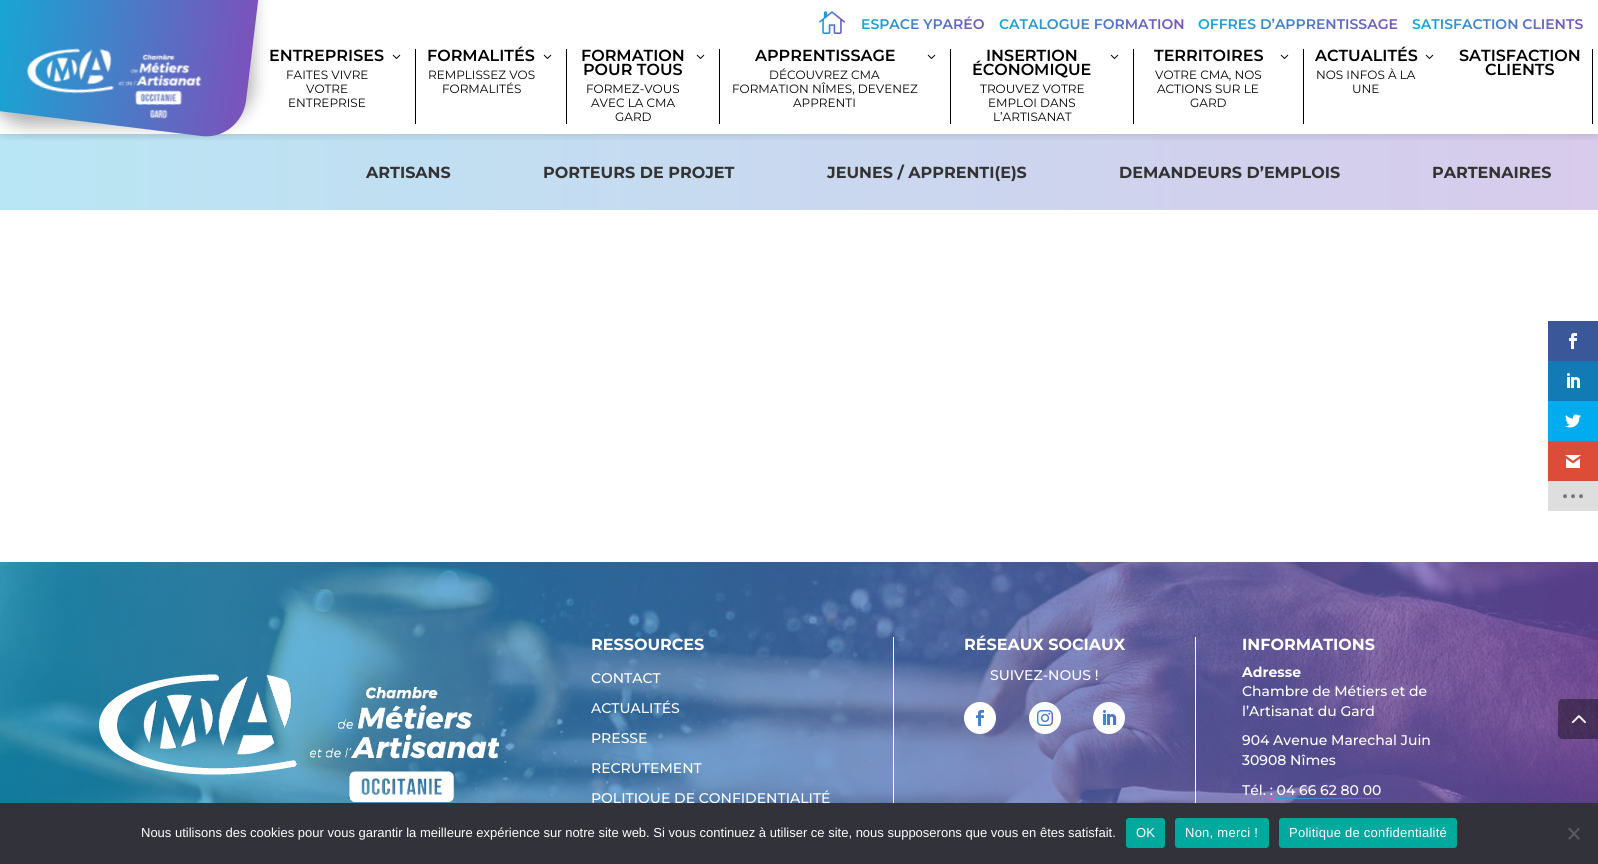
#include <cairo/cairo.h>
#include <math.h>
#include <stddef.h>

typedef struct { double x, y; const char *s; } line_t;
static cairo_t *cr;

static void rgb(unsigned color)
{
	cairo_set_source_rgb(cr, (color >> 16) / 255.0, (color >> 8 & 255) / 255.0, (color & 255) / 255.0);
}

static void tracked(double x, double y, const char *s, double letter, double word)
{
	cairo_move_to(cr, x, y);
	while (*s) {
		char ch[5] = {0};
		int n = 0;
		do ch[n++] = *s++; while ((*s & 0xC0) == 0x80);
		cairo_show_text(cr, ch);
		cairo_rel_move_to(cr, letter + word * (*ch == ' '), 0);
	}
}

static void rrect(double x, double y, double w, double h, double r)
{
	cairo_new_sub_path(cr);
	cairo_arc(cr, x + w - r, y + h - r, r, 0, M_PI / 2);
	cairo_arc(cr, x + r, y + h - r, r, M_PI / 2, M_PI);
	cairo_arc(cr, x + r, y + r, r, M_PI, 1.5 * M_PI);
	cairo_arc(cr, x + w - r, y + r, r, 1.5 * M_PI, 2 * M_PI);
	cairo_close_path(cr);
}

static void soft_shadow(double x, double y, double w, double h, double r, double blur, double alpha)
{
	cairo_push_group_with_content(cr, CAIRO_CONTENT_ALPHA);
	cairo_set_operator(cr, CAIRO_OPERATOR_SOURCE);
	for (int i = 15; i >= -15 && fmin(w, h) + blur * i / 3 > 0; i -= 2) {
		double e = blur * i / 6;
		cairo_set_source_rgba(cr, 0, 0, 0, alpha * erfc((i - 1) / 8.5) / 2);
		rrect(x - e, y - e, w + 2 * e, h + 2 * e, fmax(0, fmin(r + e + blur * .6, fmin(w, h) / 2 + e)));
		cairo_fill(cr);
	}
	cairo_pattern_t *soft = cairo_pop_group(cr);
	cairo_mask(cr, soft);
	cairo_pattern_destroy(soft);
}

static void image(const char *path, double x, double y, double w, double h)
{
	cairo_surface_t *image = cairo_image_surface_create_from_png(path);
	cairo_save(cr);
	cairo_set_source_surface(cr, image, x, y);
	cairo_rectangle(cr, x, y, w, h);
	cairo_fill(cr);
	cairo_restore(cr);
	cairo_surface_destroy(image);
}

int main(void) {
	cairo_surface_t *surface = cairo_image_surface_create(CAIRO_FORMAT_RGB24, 1598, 864);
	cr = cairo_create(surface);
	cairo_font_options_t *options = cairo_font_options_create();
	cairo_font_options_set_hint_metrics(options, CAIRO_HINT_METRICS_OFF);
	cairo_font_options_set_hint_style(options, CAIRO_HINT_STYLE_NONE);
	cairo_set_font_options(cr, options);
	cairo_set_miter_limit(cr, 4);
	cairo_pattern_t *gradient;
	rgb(0xffffff);
	cairo_paint(cr);
	gradient = cairo_pattern_create_linear(0, 172, 1598, 172);
	cairo_pattern_add_color_stop_rgba(gradient, 0, 0.725, 0.902, 0.957, 1);
	cairo_pattern_add_color_stop_rgba(gradient, 1, 0.847, 0.796, 0.922, 1);
	cairo_set_source(cr, gradient);
	cairo_pattern_destroy(gradient);
	cairo_rectangle(cr, 0, 134, 1598, 76);
	cairo_fill(cr);
	cairo_save(cr);
	cairo_rectangle(cr, 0, 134, 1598, 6);
	cairo_clip(cr);
	rgb(0x000000);
	soft_shadow(4, 4, 1590, 126, 0, 7, 0.3);
	cairo_restore(cr);
	rgb(0x000000);
	soft_shadow(-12, -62, 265, 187, 38, 8, 0.3);
	gradient = cairo_pattern_create_linear(-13, 1.2, 254, 34);
	cairo_pattern_add_color_stop_rgba(gradient, 0, 0.075, 0.663, 0.835, 1);
	cairo_pattern_add_color_stop_rgba(gradient, 1, 0.482, 0.322, 0.733, 1);
	cairo_set_source(cr, gradient);
	cairo_pattern_destroy(gradient);
	cairo_new_path(cr);
	cairo_move_to(cr, 0, -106);
	cairo_line_to(cr, 267, -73);
	cairo_line_to(cr, 246, 101);
	cairo_curve_to(cr, 243, 123, 223, 139, 201, 136);
	cairo_line_to(cr, -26, 108);
	cairo_close_path(cr);
	cairo_fill(cr);
	image("img/1.png", 27, 48, 175, 71);
	image("img/2.png", 819, 11, 26, 23);
	rgb(0x000000);
	cairo_rectangle(cr, 415, 49, 1, 75);
	cairo_fill(cr);
	image("img/3.png", 392, 54, 9, 5);
	cairo_rectangle(cr, 566, 49, 1, 75);
	cairo_fill(cr);
	image("img/3.png", 543, 54, 9, 5);
	cairo_rectangle(cr, 719, 49, 1, 75);
	cairo_fill(cr);
	image("img/3.png", 696, 54, 9, 5);
	cairo_rectangle(cr, 950, 49, 1, 75);
	cairo_fill(cr);
	image("img/3.png", 927, 54, 9, 5);
	cairo_rectangle(cr, 1133, 49, 1, 75);
	cairo_fill(cr);
	image("img/3.png", 1110, 54, 9, 5);
	cairo_rectangle(cr, 1303, 49, 1, 75);
	cairo_fill(cr);
	image("img/3.png", 1280, 54, 9, 5);
	image("img/3.png", 1425, 54, 9, 5);
	cairo_rectangle(cr, 1592, 49, 1, 75);
	cairo_fill(cr);
	image("img/4.png", 0, 562, 1598, 241);
	image("img/5.png", 99, 674, 400, 128);
	rgb(0xffffff);
	cairo_rectangle(cr, 893, 637, 1, 166);
	cairo_fill(cr);
	cairo_rectangle(cr, 1195, 637, 1, 166);
	cairo_fill(cr);
	cairo_arc(cr, 980, 718, 16, 0, 2 * M_PI);
	cairo_fill(cr);
	image("img/6.png", 976, 710, 8, 16);
	cairo_arc(cr, 1045, 718, 16, 0, 2 * M_PI);
	cairo_fill(cr);
	image("img/7.png", 1037, 710, 16, 16);
	cairo_arc(cr, 1109, 718, 16, 0, 2 * M_PI);
	cairo_fill(cr);
	image("img/8.png", 1103, 710, 14, 15);
	gradient = cairo_pattern_create_linear(1066, 798, 1381, 798);
	cairo_pattern_add_color_stop_rgba(gradient, 0, 0.075, 0.663, 0.847, 1);
	cairo_pattern_add_color_stop_rgba(gradient, 0.33, 0.482, 0.322, 0.733, 1);
	cairo_pattern_add_color_stop_rgba(gradient, 0.66, 0.075, 0.663, 0.847, 1);
	cairo_pattern_add_color_stop_rgba(gradient, 1, 0.482, 0.322, 0.733, 1);
	cairo_set_source(cr, gradient);
	cairo_pattern_destroy(gradient);
	cairo_rectangle(cr, 1276, 798, 105, 1);
	cairo_fill(cr);
	rgb(0x3a579a);
	cairo_rectangle(cr, 1548, 321, 50, 40);
	cairo_fill(cr);
	image("img/9.png", 1569, 333, 8, 16);
	rgb(0x127bb6);
	cairo_rectangle(cr, 1548, 361, 50, 40);
	cairo_fill(cr);
	image("img/10.png", 1567, 373, 13, 15);
	rgb(0x00abf0);
	cairo_rectangle(cr, 1548, 401, 50, 40);
	cairo_fill(cr);
	image("img/11.png", 1565, 414, 16, 14);
	rgb(0xdd4b39);
	cairo_rectangle(cr, 1548, 441, 50, 40);
	cairo_fill(cr);
	image("img/12.png", 1565, 455, 16, 13);
	rgb(0xdedede);
	cairo_rectangle(cr, 1548, 481, 50, 30);
	cairo_fill(cr);
	image("img/13.png", 1563, 494, 20, 5);
	cairo_set_source_rgba(cr, 0, 0, 0, 0.4);
	cairo_new_path(cr);
	cairo_move_to(cr, 1563, 699);
	cairo_line_to(cr, 1598, 699);
	cairo_line_to(cr, 1598, 739);
	cairo_line_to(cr, 1563, 739);
	cairo_curve_to(cr, 1560, 739, 1558, 737, 1558, 734);
	cairo_line_to(cr, 1558, 704);
	cairo_curve_to(cr, 1558, 701, 1560, 699, 1563, 699);
	cairo_close_path(cr);
	cairo_fill(cr);
	image("img/14.png", 1571, 715, 15, 9);
	cairo_select_font_face(cr, "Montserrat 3 Thin", CAIRO_FONT_SLANT_NORMAL, CAIRO_FONT_WEIGHT_NORMAL);
	cairo_set_font_size(cr, 14);
	gradient = cairo_pattern_create_linear(856, 24, 990, 24);
	cairo_pattern_add_color_stop_rgba(gradient, 0, 0.075, 0.663, 0.847, 1);
	cairo_pattern_add_color_stop_rgba(gradient, 1, 0.482, 0.322, 0.733, 1);
	cairo_set_source(cr, gradient);
	cairo_pattern_destroy(gradient);
	cairo_move_to(cr, 861, 29);
	cairo_show_text(cr, "ESPACE YPARÉO");
	gradient = cairo_pattern_create_linear(994, 24, 1189, 24);
	cairo_pattern_add_color_stop_rgba(gradient, 0, 0.075, 0.663, 0.847, 1);
	cairo_pattern_add_color_stop_rgba(gradient, 1, 0.482, 0.322, 0.733, 1);
	cairo_set_source(cr, gradient);
	cairo_pattern_destroy(gradient);
	cairo_move_to(cr, 999, 29);
	cairo_show_text(cr, "CATALOGUE FORMATION");
	gradient = cairo_pattern_create_linear(1193, 24, 1403, 24);
	cairo_pattern_add_color_stop_rgba(gradient, 0, 0.075, 0.663, 0.847, 1);
	cairo_pattern_add_color_stop_rgba(gradient, 1, 0.482, 0.322, 0.733, 1);
	cairo_set_source(cr, gradient);
	cairo_pattern_destroy(gradient);
	cairo_move_to(cr, 1198, 29);
	cairo_show_text(cr, "OFFRES D’APPRENTISSAGE");
	gradient = cairo_pattern_create_linear(1407, 24, 1588, 24);
	cairo_pattern_add_color_stop_rgba(gradient, 0, 0.075, 0.663, 0.847, 1);
	cairo_pattern_add_color_stop_rgba(gradient, 1, 0.482, 0.322, 0.733, 1);
	cairo_set_source(cr, gradient);
	cairo_pattern_destroy(gradient);
	cairo_move_to(cr, 1412, 29);
	cairo_show_text(cr, "SATISFACTION CLIENTS");
	cairo_set_font_size(cr, 16);
	rgb(0x000000);
	cairo_move_to(cr, 269, 61);
	cairo_show_text(cr, "ENTREPRISES");
	cairo_select_font_face(cr, "Montserrat", CAIRO_FONT_SLANT_NORMAL, CAIRO_FONT_WEIGHT_NORMAL);
	cairo_set_font_size(cr, 12);
	{
		static const line_t items[] = {
			{286, 79, "FAITES VIVRE"},
			{306, 93, "VOTRE"},
			{288, 107, "ENTREPRISE"},
		};
		for (size_t i = 0; i < sizeof items / sizeof *items; i++) {
			cairo_move_to(cr, items[i].x, items[i].y);
			cairo_show_text(cr, items[i].s);
		}
	}
	cairo_select_font_face(cr, "Montserrat 3 Thin", CAIRO_FONT_SLANT_NORMAL, CAIRO_FONT_WEIGHT_NORMAL);
	cairo_set_font_size(cr, 16);
	cairo_move_to(cr, 427, 61);
	cairo_show_text(cr, "FORMALITÉS");
	cairo_select_font_face(cr, "Montserrat", CAIRO_FONT_SLANT_NORMAL, CAIRO_FONT_WEIGHT_NORMAL);
	cairo_set_font_size(cr, 12);
	cairo_move_to(cr, 428, 79);
	cairo_show_text(cr, "REMPLISSEZ VOS");
	cairo_move_to(cr, 442, 93);
	cairo_show_text(cr, "FORMALITÉS");
	cairo_select_font_face(cr, "Montserrat 3 Thin", CAIRO_FONT_SLANT_NORMAL, CAIRO_FONT_WEIGHT_NORMAL);
	cairo_set_font_size(cr, 16);
	cairo_move_to(cr, 581, 61);
	cairo_show_text(cr, "FORMATION");
	cairo_move_to(cr, 583, 75);
	cairo_show_text(cr, "POUR TOUS");
	cairo_select_font_face(cr, "Montserrat", CAIRO_FONT_SLANT_NORMAL, CAIRO_FONT_WEIGHT_NORMAL);
	cairo_set_font_size(cr, 12);
	{
		static const line_t items[] = {
			{586, 93, "FORMEZ-VOUS"},
			{591, 107, "AVEC LA CMA"},
			{615, 121, "GARD"},
		};
		for (size_t i = 0; i < sizeof items / sizeof *items; i++) {
			cairo_move_to(cr, items[i].x, items[i].y);
			cairo_show_text(cr, items[i].s);
		}
	}
	cairo_select_font_face(cr, "Montserrat 3 Thin", CAIRO_FONT_SLANT_NORMAL, CAIRO_FONT_WEIGHT_NORMAL);
	cairo_set_font_size(cr, 16);
	cairo_move_to(cr, 755, 61);
	cairo_show_text(cr, "APPRENTISSAGE");
	cairo_select_font_face(cr, "Montserrat", CAIRO_FONT_SLANT_NORMAL, CAIRO_FONT_WEIGHT_NORMAL);
	cairo_set_font_size(cr, 12);
	{
		static const line_t items[] = {
			{769, 79, "DÉCOUVREZ CMA"},
			{732, 93, "FORMATION NÎMES, DEVENEZ"},
			{793, 107, "APPRENTI"},
		};
		for (size_t i = 0; i < sizeof items / sizeof *items; i++) {
			cairo_move_to(cr, items[i].x, items[i].y);
			cairo_show_text(cr, items[i].s);
		}
	}
	cairo_select_font_face(cr, "Montserrat 3 Thin", CAIRO_FONT_SLANT_NORMAL, CAIRO_FONT_WEIGHT_NORMAL);
	cairo_set_font_size(cr, 16);
	cairo_move_to(cr, 986, 61);
	cairo_show_text(cr, "INSERTION");
	cairo_move_to(cr, 972, 75);
	cairo_show_text(cr, "ÉCONOMIQUE");
	cairo_select_font_face(cr, "Montserrat", CAIRO_FONT_SLANT_NORMAL, CAIRO_FONT_WEIGHT_NORMAL);
	cairo_set_font_size(cr, 12);
	{
		static const line_t items[] = {
			{980, 93, "TROUVEZ VOTRE"},
			{988, 107, "EMPLOI DANS"},
			{993, 121, "L’ARTISANAT"},
		};
		for (size_t i = 0; i < sizeof items / sizeof *items; i++) {
			cairo_move_to(cr, items[i].x, items[i].y);
			cairo_show_text(cr, items[i].s);
		}
	}
	cairo_select_font_face(cr, "Montserrat 3 Thin", CAIRO_FONT_SLANT_NORMAL, CAIRO_FONT_WEIGHT_NORMAL);
	cairo_set_font_size(cr, 16);
	cairo_move_to(cr, 1154, 61);
	cairo_show_text(cr, "TERRITOIRES");
	cairo_select_font_face(cr, "Montserrat", CAIRO_FONT_SLANT_NORMAL, CAIRO_FONT_WEIGHT_NORMAL);
	cairo_set_font_size(cr, 12);
	{
		static const line_t items[] = {
			{1155, 79, "VOTRE CMA, NOS"},
			{1157, 93, "ACTIONS SUR LE"},
			{1190, 107, "GARD"},
		};
		for (size_t i = 0; i < sizeof items / sizeof *items; i++) {
			cairo_move_to(cr, items[i].x, items[i].y);
			cairo_show_text(cr, items[i].s);
		}
	}
	cairo_select_font_face(cr, "Montserrat 3 Thin", CAIRO_FONT_SLANT_NORMAL, CAIRO_FONT_WEIGHT_NORMAL);
	cairo_set_font_size(cr, 16);
	cairo_move_to(cr, 1315, 61);
	cairo_show_text(cr, "ACTUALITÉS");
	cairo_select_font_face(cr, "Montserrat", CAIRO_FONT_SLANT_NORMAL, CAIRO_FONT_WEIGHT_NORMAL);
	cairo_set_font_size(cr, 12);
	cairo_move_to(cr, 1316, 79);
	cairo_show_text(cr, "NOS INFOS À LA");
	cairo_move_to(cr, 1352, 93);
	cairo_show_text(cr, "UNE");
	cairo_select_font_face(cr, "Montserrat 3 Thin", CAIRO_FONT_SLANT_NORMAL, CAIRO_FONT_WEIGHT_NORMAL);
	cairo_set_font_size(cr, 16);
	cairo_move_to(cr, 1459, 61);
	cairo_show_text(cr, "SATISFACTION");
	cairo_move_to(cr, 1485, 75);
	cairo_show_text(cr, "CLIENTS");
	cairo_select_font_face(cr, "Montserrat Thin", CAIRO_FONT_SLANT_NORMAL, CAIRO_FONT_WEIGHT_NORMAL);
	rgb(0x333333);
	{
		static const line_t items[] = {
			{366, 178, "ARTISANS"},
			{543, 178, "PORTEURS DE PROJET"},
			{827, 178, "JEUNES / APPRENTI(E)S"},
			{1119, 178, "DEMANDEURS D’EMPLOIS"},
			{1432, 178, "PARTENAIRES"},
		};
		for (size_t i = 0; i < sizeof items / sizeof *items; i++) {
			cairo_move_to(cr, items[i].x, items[i].y);
			cairo_show_text(cr, items[i].s);
		}
	}
	rgb(0xffffff);
	cairo_move_to(cr, 591, 650);
	cairo_show_text(cr, "RESSOURCES");
	cairo_select_font_face(cr, "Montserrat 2 Thin", CAIRO_FONT_SLANT_NORMAL, CAIRO_FONT_WEIGHT_NORMAL);
	cairo_set_font_size(cr, 14);
	{
		static const line_t items[] = {
			{591, 683, "CONTACT"},
			{591, 713, "ACTUALITÉS"},
			{591, 743, "PRESSE"},
			{591, 773, "RECRUTEMENT"},
			{591, 803, "POLITIQUE DE CONFIDENTIALITÉ"},
		};
		for (size_t i = 0; i < sizeof items / sizeof *items; i++) {
			cairo_move_to(cr, items[i].x, items[i].y);
			cairo_show_text(cr, items[i].s);
		}
	}
	cairo_select_font_face(cr, "Montserrat Thin", CAIRO_FONT_SLANT_NORMAL, CAIRO_FONT_WEIGHT_NORMAL);
	cairo_set_font_size(cr, 16);
	cairo_move_to(cr, 964, 650);
	cairo_show_text(cr, "RÉSEAUX SOCIAUX");
	cairo_select_font_face(cr, "Montserrat 2 Thin", CAIRO_FONT_SLANT_NORMAL, CAIRO_FONT_WEIGHT_NORMAL);
	cairo_set_font_size(cr, 14);
	cairo_move_to(cr, 990, 680);
	cairo_show_text(cr, "SUIVEZ-NOUS !");
	cairo_select_font_face(cr, "Montserrat Thin", CAIRO_FONT_SLANT_NORMAL, CAIRO_FONT_WEIGHT_NORMAL);
	cairo_set_font_size(cr, 16);
	cairo_move_to(cr, 1242, 650);
	cairo_show_text(cr, "INFORMATIONS");
	cairo_set_font_size(cr, 14);
	cairo_move_to(cr, 1242, 677);
	cairo_show_text(cr, "Adresse");
	cairo_select_font_face(cr, "Montserrat 2 Thin", CAIRO_FONT_SLANT_NORMAL, CAIRO_FONT_WEIGHT_NORMAL);
	{
		static const line_t items[] = {
			{1242, 696, "Chambre de Métiers et de"},
			{1242, 716, "l’Artisanat du Gard"},
			{1242, 745, "904 Avenue Marechal Juin"},
			{1242, 765, "30908 Nîmes"},
			{1242, 795, "Tél. : 04 66 62 80 00"},
		};
		for (size_t i = 0; i < sizeof items / sizeof *items; i++) {
			cairo_move_to(cr, items[i].x, items[i].y);
			cairo_show_text(cr, items[i].s);
		}
	}
	rgb(0x32323a);
	cairo_rectangle(cr, 0, 803, 1598, 61);
	cairo_fill(cr);
	cairo_select_font_face(cr, "Liberation Sans", CAIRO_FONT_SLANT_NORMAL, CAIRO_FONT_WEIGHT_NORMAL);
	cairo_set_font_size(cr, 13);
	rgb(0xffffff);
	cairo_move_to(cr, 141, 837);
	cairo_show_text(cr, "Nous utilisons des cookies pour vous garantir la meilleure expérience sur notre site web. Si vous continuez à utiliser ce site, nous supposerons que vous en êtes satisfait.");
	rgb(0x00a99d);
	rrect(1126, 818, 39, 30, 3);
	cairo_fill(cr);
	rgb(0xffffff);
	tracked(1136, 837, "OK", 0.25, 0);
	rgb(0x00a99d);
	rrect(1175, 818, 94, 30, 3);
	cairo_fill(cr);
	rgb(0xffffff);
	tracked(1185, 837, "Non, merci !", 0.25, 0);
	rgb(0x00a99d);
	rrect(1279, 818, 178, 30, 3);
	cairo_fill(cr);
	rgb(0xffffff);
	tracked(1289, 837, "Politique de confidentialité", 0.25, 0);
	rgb(0x59595d);
	cairo_new_path(cr);
	cairo_move_to(cr, 1578.5, 827.5);
	cairo_line_to(cr, 1580, 829);
	cairo_line_to(cr, 1569.5, 840);
	cairo_line_to(cr, 1568, 838.5);
	cairo_close_path(cr);
	cairo_fill(cr);
	cairo_new_path(cr);
	cairo_move_to(cr, 1568, 829);
	cairo_line_to(cr, 1569.5, 827.5);
	cairo_line_to(cr, 1580, 838.5);
	cairo_line_to(cr, 1578.5, 840);
	cairo_close_path(cr);
	cairo_fill(cr);
	cairo_surface_write_to_png(surface, "page.png");
	cairo_font_options_destroy(options);
	cairo_destroy(cr);
	cairo_surface_destroy(surface);
	return 0;
}
